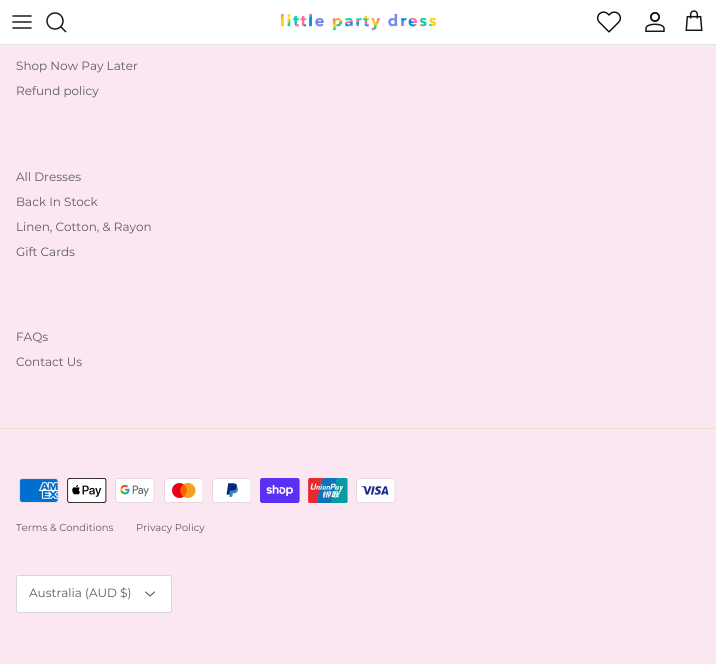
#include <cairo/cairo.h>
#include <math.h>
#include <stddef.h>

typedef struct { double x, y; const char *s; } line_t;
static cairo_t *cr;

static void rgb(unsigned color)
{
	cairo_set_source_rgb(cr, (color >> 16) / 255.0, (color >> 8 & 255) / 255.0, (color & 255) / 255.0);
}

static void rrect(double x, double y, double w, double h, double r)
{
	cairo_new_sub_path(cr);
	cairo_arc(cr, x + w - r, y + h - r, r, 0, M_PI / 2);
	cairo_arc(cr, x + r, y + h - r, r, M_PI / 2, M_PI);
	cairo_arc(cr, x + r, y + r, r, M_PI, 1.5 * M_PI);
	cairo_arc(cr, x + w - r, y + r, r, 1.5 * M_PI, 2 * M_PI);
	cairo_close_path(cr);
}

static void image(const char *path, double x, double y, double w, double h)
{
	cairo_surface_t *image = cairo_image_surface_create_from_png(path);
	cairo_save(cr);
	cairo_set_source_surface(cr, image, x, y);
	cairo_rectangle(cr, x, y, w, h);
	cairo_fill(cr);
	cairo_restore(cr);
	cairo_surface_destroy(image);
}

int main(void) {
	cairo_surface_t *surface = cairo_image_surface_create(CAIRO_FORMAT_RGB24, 716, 664);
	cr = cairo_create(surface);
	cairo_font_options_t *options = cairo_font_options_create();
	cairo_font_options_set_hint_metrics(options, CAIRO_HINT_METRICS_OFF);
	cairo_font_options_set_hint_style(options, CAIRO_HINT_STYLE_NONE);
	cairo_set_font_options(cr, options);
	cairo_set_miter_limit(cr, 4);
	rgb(0xfae7f1);
	cairo_paint(cr);
	rgb(0xffffff);
	cairo_rectangle(cr, 0, 0, 716, 44);
	cairo_fill(cr);
	rgb(0xdfe3e8);
	cairo_rectangle(cr, 0, 44, 716, 1);
	cairo_fill(cr);
	image("img/1.png", 12, 15, 20, 14);
	cairo_arc(cr, 55, 21, 8, 0, 2 * M_PI);
	rgb(0x171717);
	cairo_set_line_width(cr, 1.5);
	cairo_stroke(cr);
	cairo_new_path(cr);
	cairo_move_to(cr, 61, 27);
	cairo_line_to(cr, 65.5, 31.5);
	cairo_set_line_cap(cr, CAIRO_LINE_CAP_SQUARE);
	cairo_stroke(cr);
	image("img/2.png", 280, 13, 156, 18);
	image("img/3.png", 597, 11, 24, 22);
	image("img/4.png", 645, 12, 20, 20);
	image("img/5.png", 685, 10, 18, 21);
	rgb(0xefdfc7);
	cairo_rectangle(cr, 0, 428, 716, 1);
	cairo_fill(cr);
	image("img/6.png", 19, 478, 40, 25);
	image("img/7.png", 67, 478, 40, 25);
	image("img/8.png", 115, 478, 40, 25);
	image("img/9.png", 164, 478, 39, 25);
	image("img/10.png", 212, 478, 39, 25);
	image("img/11.png", 260, 478, 40, 25);
	image("img/12.png", 308, 478, 40, 25);
	image("img/13.png", 356, 478, 40, 25);
	rgb(0xffffff);
	rrect(16.5, 575.5, 155, 37, 2.5);
	cairo_fill_preserve(cr);
	rgb(0xd6d6d6);
	cairo_set_line_width(cr, 1);
	cairo_set_line_cap(cr, CAIRO_LINE_CAP_BUTT);
	cairo_stroke(cr);
	cairo_new_path(cr);
	cairo_move_to(cr, 145.5, 592);
	cairo_line_to(cr, 150, 596);
	cairo_line_to(cr, 154.5, 592);
	rgb(0x5c5c5c);
	cairo_set_line_width(cr, 1.1);
	cairo_set_line_cap(cr, CAIRO_LINE_CAP_ROUND);
	cairo_set_line_join(cr, CAIRO_LINE_JOIN_ROUND);
	cairo_stroke(cr);
	cairo_select_font_face(cr, "Montserrat", CAIRO_FONT_SLANT_NORMAL, CAIRO_FONT_WEIGHT_NORMAL);
	cairo_set_font_size(cr, 12);
	{
		static const line_t items[] = {
			{16, 70, "Shop Now Pay Later"},
			{16, 95, "Refund policy"},
			{16, 181, "All Dresses"},
			{16, 206, "Back In Stock"},
			{16, 231, "Linen, Cotton, & Rayon"},
			{16, 256, "Gift Cards"},
			{16, 341, "FAQs"},
			{16, 366, "Contact Us"},
		};
		for (size_t i = 0; i < sizeof items / sizeof *items; i++) {
			cairo_move_to(cr, items[i].x, items[i].y);
			cairo_show_text(cr, items[i].s);
		}
	}
	cairo_set_font_size(cr, 10);
	cairo_move_to(cr, 16, 531);
	cairo_show_text(cr, "Terms & Conditions");
	cairo_move_to(cr, 136, 531);
	cairo_show_text(cr, "Privacy Policy");
	cairo_set_font_size(cr, 12);
	cairo_move_to(cr, 29, 597);
	cairo_show_text(cr, "Australia (AUD $)");
	cairo_surface_write_to_png(surface, "page.png");
	cairo_font_options_destroy(options);
	cairo_destroy(cr);
	cairo_surface_destroy(surface);
	return 0;
}
